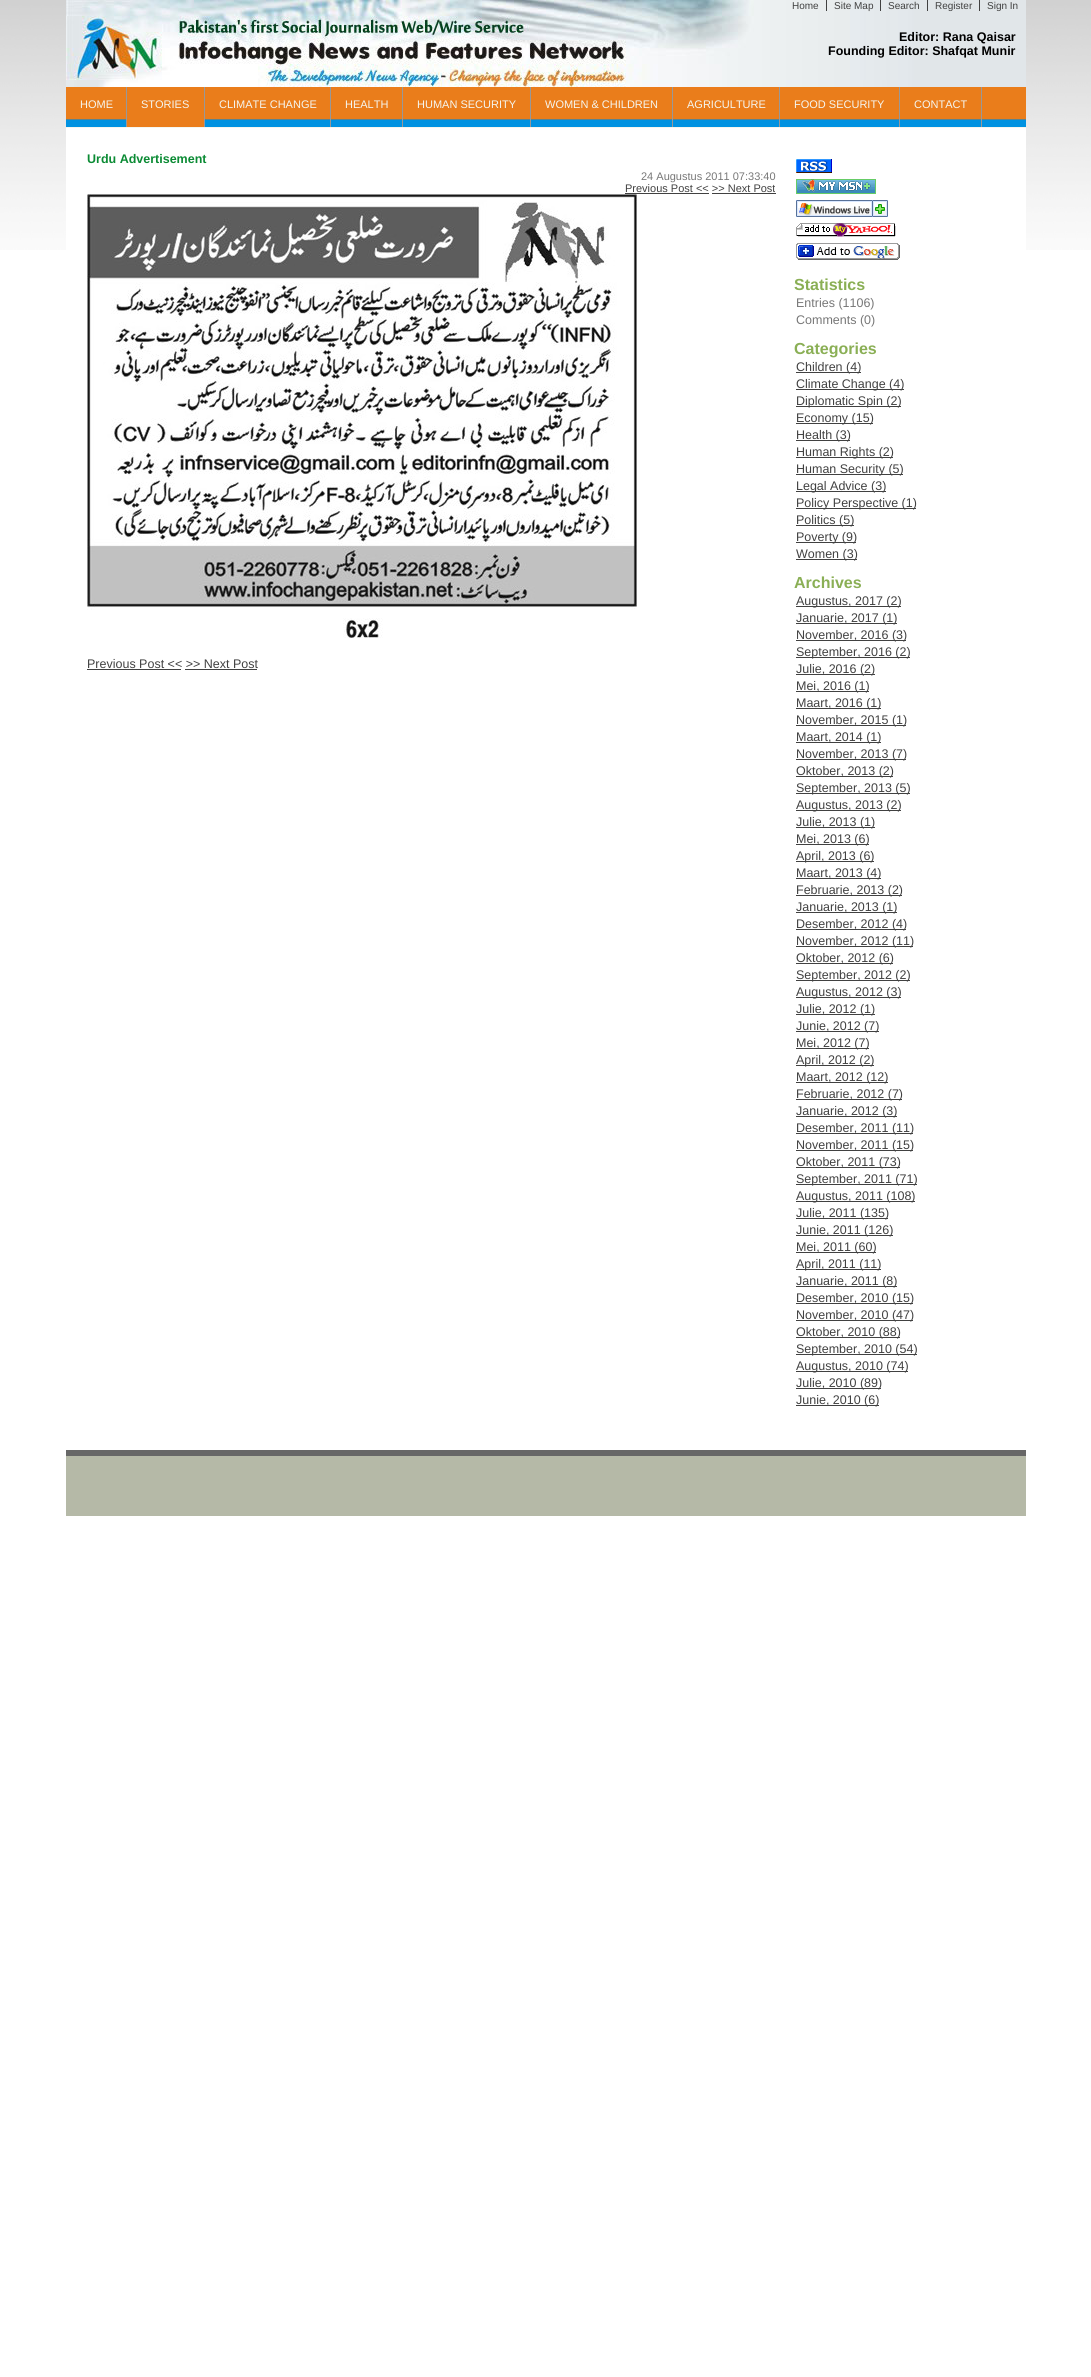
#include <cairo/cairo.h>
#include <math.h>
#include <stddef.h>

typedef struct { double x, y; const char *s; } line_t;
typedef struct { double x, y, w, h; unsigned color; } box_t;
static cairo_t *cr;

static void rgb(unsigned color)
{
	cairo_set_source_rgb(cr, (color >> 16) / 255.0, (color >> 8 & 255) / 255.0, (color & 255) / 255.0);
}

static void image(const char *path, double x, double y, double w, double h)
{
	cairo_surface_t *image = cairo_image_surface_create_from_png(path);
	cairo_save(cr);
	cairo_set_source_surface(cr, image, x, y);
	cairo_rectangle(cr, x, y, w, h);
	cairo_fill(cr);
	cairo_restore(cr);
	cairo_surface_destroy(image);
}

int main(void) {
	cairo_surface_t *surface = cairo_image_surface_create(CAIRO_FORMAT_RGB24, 1091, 2377);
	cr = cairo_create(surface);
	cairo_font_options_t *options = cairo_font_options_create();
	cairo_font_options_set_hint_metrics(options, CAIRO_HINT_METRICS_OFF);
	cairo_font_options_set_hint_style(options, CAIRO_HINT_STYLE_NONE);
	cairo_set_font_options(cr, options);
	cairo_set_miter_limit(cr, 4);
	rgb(0xffffff);
	cairo_paint(cr);
	image("img/1.png", 0, 0, 1091, 250);
	rgb(0xffffff);
	cairo_rectangle(cr, 66, 128, 960, 122);
	cairo_fill(cr);
	image("img/2.png", 66, 0, 960, 87);
	{
		static const box_t items[] = {
			{826, 0, 1, 11, 0x414141},
			{880, 0, 1, 11, 0x414141},
			{927, 0, 1, 11, 0x414141},
			{979, 0, 1, 11, 0x414141},
		};
		for (size_t i = 0; i < sizeof items / sizeof *items; i++) {
			rgb(items[i].color);
			cairo_rectangle(cr, items[i].x, items[i].y, items[i].w, items[i].h);
			cairo_fill(cr);
		}
	}
	image("img/3.png", 66, 87, 960, 40);
	{
		static const box_t items[] = {
			{66, 127, 960, 1, 0xf5f6f0},
			{126, 87, 1, 40, 0x989898},
			{127, 119, 77, 8, 0xea7d1b},
			{204, 87, 1, 40, 0x989898},
			{330, 87, 1, 40, 0x989898},
			{402, 87, 1, 40, 0x989898},
			{530, 87, 1, 40, 0x989898},
			{672, 87, 1, 40, 0x989898},
			{779, 87, 1, 40, 0x989898},
			{899, 87, 1, 40, 0x989898},
			{981, 87, 1, 40, 0x989898},
			{625, 193, 84, 1, 0x414141},
			{712, 193, 64, 1, 0x414141},
		};
		for (size_t i = 0; i < sizeof items / sizeof *items; i++) {
			rgb(items[i].color);
			cairo_rectangle(cr, items[i].x, items[i].y, items[i].w, items[i].h);
			cairo_fill(cr);
		}
	}
	image("img/4.png", 87, 194, 550, 444);
	cairo_rectangle(cr, 87, 669, 94, 1);
	cairo_fill(cr);
	cairo_rectangle(cr, 185, 669, 72, 1);
	cairo_fill(cr);
	image("img/5.png", 796, 159, 36, 14);
	image("img/6.png", 796, 179, 80, 15);
	image("img/7.png", 796, 200, 92, 17);
	image("img/8.png", 796, 223, 100, 14);
	image("img/9.png", 796, 243, 104, 17);
	{
		static const box_t items[] = {
			{796, 372, 65, 1, 0x414141},
			{796, 389, 108, 1, 0x414141},
			{796, 406, 105, 1, 0x414141},
			{796, 423, 77, 1, 0x414141},
			{796, 440, 54, 1, 0x414141},
			{796, 457, 97, 1, 0x414141},
			{796, 474, 107, 1, 0x414141},
			{796, 491, 90, 1, 0x414141},
			{796, 508, 120, 1, 0x414141},
			{796, 525, 58, 1, 0x414141},
			{796, 542, 60, 1, 0x414141},
			{796, 559, 61, 1, 0x414141},
			{796, 606, 105, 1, 0x414141},
			{796, 623, 101, 1, 0x414141},
			{796, 640, 110, 1, 0x414141},
			{796, 657, 114, 1, 0x414141},
			{796, 674, 79, 1, 0x414141},
			{796, 691, 73, 1, 0x414141},
			{796, 708, 85, 1, 0x414141},
			{796, 725, 110, 1, 0x414141},
			{796, 742, 85, 1, 0x414141},
			{796, 759, 110, 1, 0x414141},
			{796, 776, 97, 1, 0x414141},
			{796, 793, 114, 1, 0x414141},
			{796, 810, 105, 1, 0x414141},
			{796, 827, 79, 1, 0x414141},
			{796, 844, 73, 1, 0x414141},
			{796, 861, 78, 1, 0x414141},
			{796, 878, 85, 1, 0x414141},
			{796, 895, 106, 1, 0x414141},
			{796, 912, 101, 1, 0x414141},
			{796, 929, 110, 1, 0x414141},
			{796, 946, 117, 1, 0x414141},
			{796, 963, 97, 1, 0x414141},
			{796, 980, 114, 1, 0x414141},
			{796, 997, 105, 1, 0x414141},
			{796, 1014, 79, 1, 0x414141},
			{796, 1031, 83, 1, 0x414141},
			{796, 1048, 73, 1, 0x414141},
			{796, 1065, 78, 1, 0x414141},
			{796, 1082, 92, 1, 0x414141},
			{796, 1099, 106, 1, 0x414141},
			{796, 1116, 101, 1, 0x414141},
			{796, 1133, 117, 1, 0x414141},
			{796, 1150, 117, 1, 0x414141},
			{796, 1167, 104, 1, 0x414141},
			{796, 1184, 121, 1, 0x414141},
			{796, 1201, 119, 1, 0x414141},
			{796, 1218, 92, 1, 0x414141},
			{796, 1235, 97, 1, 0x414141},
			{796, 1252, 80, 1, 0x414141},
			{796, 1269, 85, 1, 0x414141},
			{796, 1286, 101, 1, 0x414141},
			{796, 1303, 117, 1, 0x414141},
			{796, 1320, 117, 1, 0x414141},
			{796, 1337, 104, 1, 0x414141},
			{796, 1354, 121, 1, 0x414141},
			{796, 1371, 112, 1, 0x414141},
			{796, 1388, 85, 1, 0x414141},
			{796, 1405, 83, 1, 0x414141},
			{66, 1456, 960, 60, 0xb5b9a7},
			{66, 1450, 960, 6, 0x676767},
		};
		for (size_t i = 0; i < sizeof items / sizeof *items; i++) {
			rgb(items[i].color);
			cairo_rectangle(cr, items[i].x, items[i].y, items[i].w, items[i].h);
			cairo_fill(cr);
		}
	}
	cairo_select_font_face(cr, "Liberation Sans", CAIRO_FONT_SLANT_NORMAL, CAIRO_FONT_WEIGHT_NORMAL);
	cairo_set_font_size(cr, 10);
	rgb(0x414141);
	{
		static const line_t items[] = {
			{792, 9, "Home"},
			{834, 9, "Site Map"},
			{888, 9, "Search"},
			{935, 9, "Register"},
			{987, 9, "Sign In"},
		};
		for (size_t i = 0; i < sizeof items / sizeof *items; i++) {
			cairo_move_to(cr, items[i].x, items[i].y);
			cairo_show_text(cr, items[i].s);
		}
	}
	cairo_select_font_face(cr, "Liberation Sans", CAIRO_FONT_SLANT_NORMAL, CAIRO_FONT_WEIGHT_BOLD);
	cairo_set_font_size(cr, 12.5);
	rgb(0x000000);
	cairo_move_to(cr, 899, 41);
	cairo_show_text(cr, "Editor: Rana Qaisar");
	cairo_move_to(cr, 828, 55);
	cairo_show_text(cr, "Founding Editor: Shafqat Munir");
	cairo_select_font_face(cr, "Liberation Sans", CAIRO_FONT_SLANT_NORMAL, CAIRO_FONT_WEIGHT_NORMAL);
	cairo_set_font_size(cr, 11);
	rgb(0xf5f6f0);
	{
		static const line_t items[] = {
			{80, 108, "HOME"},
			{141, 108, "STORIES"},
			{219, 108, "CLIMATE CHANGE"},
			{345, 108, "HEALTH"},
			{417, 108, "HUMAN SECURITY"},
			{545, 108, "WOMEN & CHILDREN"},
			{687, 108, "AGRICULTURE"},
			{794, 108, "FOOD SECURITY"},
			{914, 108, "CONTACT"},
		};
		for (size_t i = 0; i < sizeof items / sizeof *items; i++) {
			cairo_move_to(cr, items[i].x, items[i].y);
			cairo_show_text(cr, items[i].s);
		}
	}
	cairo_select_font_face(cr, "Liberation Sans", CAIRO_FONT_SLANT_NORMAL, CAIRO_FONT_WEIGHT_BOLD);
	cairo_set_font_size(cr, 12.5);
	rgb(0x0b8b34);
	cairo_move_to(cr, 87, 163);
	cairo_show_text(cr, "Urdu Advertisement");
	cairo_select_font_face(cr, "Liberation Sans", CAIRO_FONT_SLANT_NORMAL, CAIRO_FONT_WEIGHT_NORMAL);
	cairo_set_font_size(cr, 11);
	rgb(0x777777);
	cairo_move_to(cr, 641, 180);
	cairo_show_text(cr, "24 Augustus 2011 07:33:40");
	rgb(0x414141);
	cairo_move_to(cr, 625, 192);
	cairo_show_text(cr, "Previous Post << >> Next Post");
	cairo_set_font_size(cr, 12.5);
	cairo_move_to(cr, 87, 668);
	cairo_show_text(cr, "Previous Post << >> Next Post");
	cairo_select_font_face(cr, "Liberation Sans", CAIRO_FONT_SLANT_NORMAL, CAIRO_FONT_WEIGHT_BOLD);
	cairo_set_font_size(cr, 16);
	rgb(0x8aaf55);
	cairo_move_to(cr, 794, 290);
	cairo_show_text(cr, "Statistics");
	cairo_select_font_face(cr, "Liberation Sans", CAIRO_FONT_SLANT_NORMAL, CAIRO_FONT_WEIGHT_NORMAL);
	cairo_set_font_size(cr, 12.5);
	rgb(0x777777);
	cairo_move_to(cr, 796, 307);
	cairo_show_text(cr, "Entries (1106)");
	cairo_move_to(cr, 796, 324);
	cairo_show_text(cr, "Comments (0)");
	cairo_select_font_face(cr, "Liberation Sans", CAIRO_FONT_SLANT_NORMAL, CAIRO_FONT_WEIGHT_BOLD);
	cairo_set_font_size(cr, 16);
	rgb(0x8aaf55);
	cairo_move_to(cr, 794, 354);
	cairo_show_text(cr, "Categories");
	cairo_select_font_face(cr, "Liberation Sans", CAIRO_FONT_SLANT_NORMAL, CAIRO_FONT_WEIGHT_NORMAL);
	cairo_set_font_size(cr, 12.5);
	rgb(0x414141);
	{
		static const line_t items[] = {
			{796, 371, "Children (4)"},
			{796, 388, "Climate Change (4)"},
			{796, 405, "Diplomatic Spin (2)"},
			{796, 422, "Economy (15)"},
			{796, 439, "Health (3)"},
			{796, 456, "Human Rights (2)"},
			{796, 473, "Human Security (5)"},
			{796, 490, "Legal Advice (3)"},
			{796, 507, "Policy Perspective (1)"},
			{796, 524, "Politics (5)"},
			{796, 541, "Poverty (9)"},
			{796, 558, "Women (3)"},
		};
		for (size_t i = 0; i < sizeof items / sizeof *items; i++) {
			cairo_move_to(cr, items[i].x, items[i].y);
			cairo_show_text(cr, items[i].s);
		}
	}
	cairo_select_font_face(cr, "Liberation Sans", CAIRO_FONT_SLANT_NORMAL, CAIRO_FONT_WEIGHT_BOLD);
	cairo_set_font_size(cr, 16);
	rgb(0x8aaf55);
	cairo_move_to(cr, 794, 588);
	cairo_show_text(cr, "Archives");
	cairo_select_font_face(cr, "Liberation Sans", CAIRO_FONT_SLANT_NORMAL, CAIRO_FONT_WEIGHT_NORMAL);
	cairo_set_font_size(cr, 12.5);
	rgb(0x414141);
	{
		static const line_t items[] = {
			{796, 605, "Augustus, 2017 (2)"},
			{796, 622, "Januarie, 2017 (1)"},
			{796, 639, "November, 2016 (3)"},
			{796, 656, "September, 2016 (2)"},
			{796, 673, "Julie, 2016 (2)"},
			{796, 690, "Mei, 2016 (1)"},
			{796, 707, "Maart, 2016 (1)"},
			{796, 724, "November, 2015 (1)"},
			{796, 741, "Maart, 2014 (1)"},
			{796, 758, "November, 2013 (7)"},
			{796, 775, "Oktober, 2013 (2)"},
			{796, 792, "September, 2013 (5)"},
			{796, 809, "Augustus, 2013 (2)"},
			{796, 826, "Julie, 2013 (1)"},
			{796, 843, "Mei, 2013 (6)"},
			{796, 860, "April, 2013 (6)"},
			{796, 877, "Maart, 2013 (4)"},
			{796, 894, "Februarie, 2013 (2)"},
			{796, 911, "Januarie, 2013 (1)"},
			{796, 928, "Desember, 2012 (4)"},
			{796, 945, "November, 2012 (11)"},
			{796, 962, "Oktober, 2012 (6)"},
			{796, 979, "September, 2012 (2)"},
			{796, 996, "Augustus, 2012 (3)"},
			{796, 1013, "Julie, 2012 (1)"},
			{796, 1030, "Junie, 2012 (7)"},
			{796, 1047, "Mei, 2012 (7)"},
			{796, 1064, "April, 2012 (2)"},
			{796, 1081, "Maart, 2012 (12)"},
			{796, 1098, "Februarie, 2012 (7)"},
			{796, 1115, "Januarie, 2012 (3)"},
			{796, 1132, "Desember, 2011 (11)"},
			{796, 1149, "November, 2011 (15)"},
			{796, 1166, "Oktober, 2011 (73)"},
			{796, 1183, "September, 2011 (71)"},
			{796, 1200, "Augustus, 2011 (108)"},
			{796, 1217, "Julie, 2011 (135)"},
			{796, 1234, "Junie, 2011 (126)"},
			{796, 1251, "Mei, 2011 (60)"},
			{796, 1268, "April, 2011 (11)"},
			{796, 1285, "Januarie, 2011 (8)"},
			{796, 1302, "Desember, 2010 (15)"},
			{796, 1319, "November, 2010 (47)"},
			{796, 1336, "Oktober, 2010 (88)"},
			{796, 1353, "September, 2010 (54)"},
			{796, 1370, "Augustus, 2010 (74)"},
			{796, 1387, "Julie, 2010 (89)"},
			{796, 1404, "Junie, 2010 (6)"},
		};
		for (size_t i = 0; i < sizeof items / sizeof *items; i++) {
			cairo_move_to(cr, items[i].x, items[i].y);
			cairo_show_text(cr, items[i].s);
		}
	}
	cairo_surface_write_to_png(surface, "page.png");
	cairo_font_options_destroy(options);
	cairo_destroy(cr);
	cairo_surface_destroy(surface);
	return 0;
}
